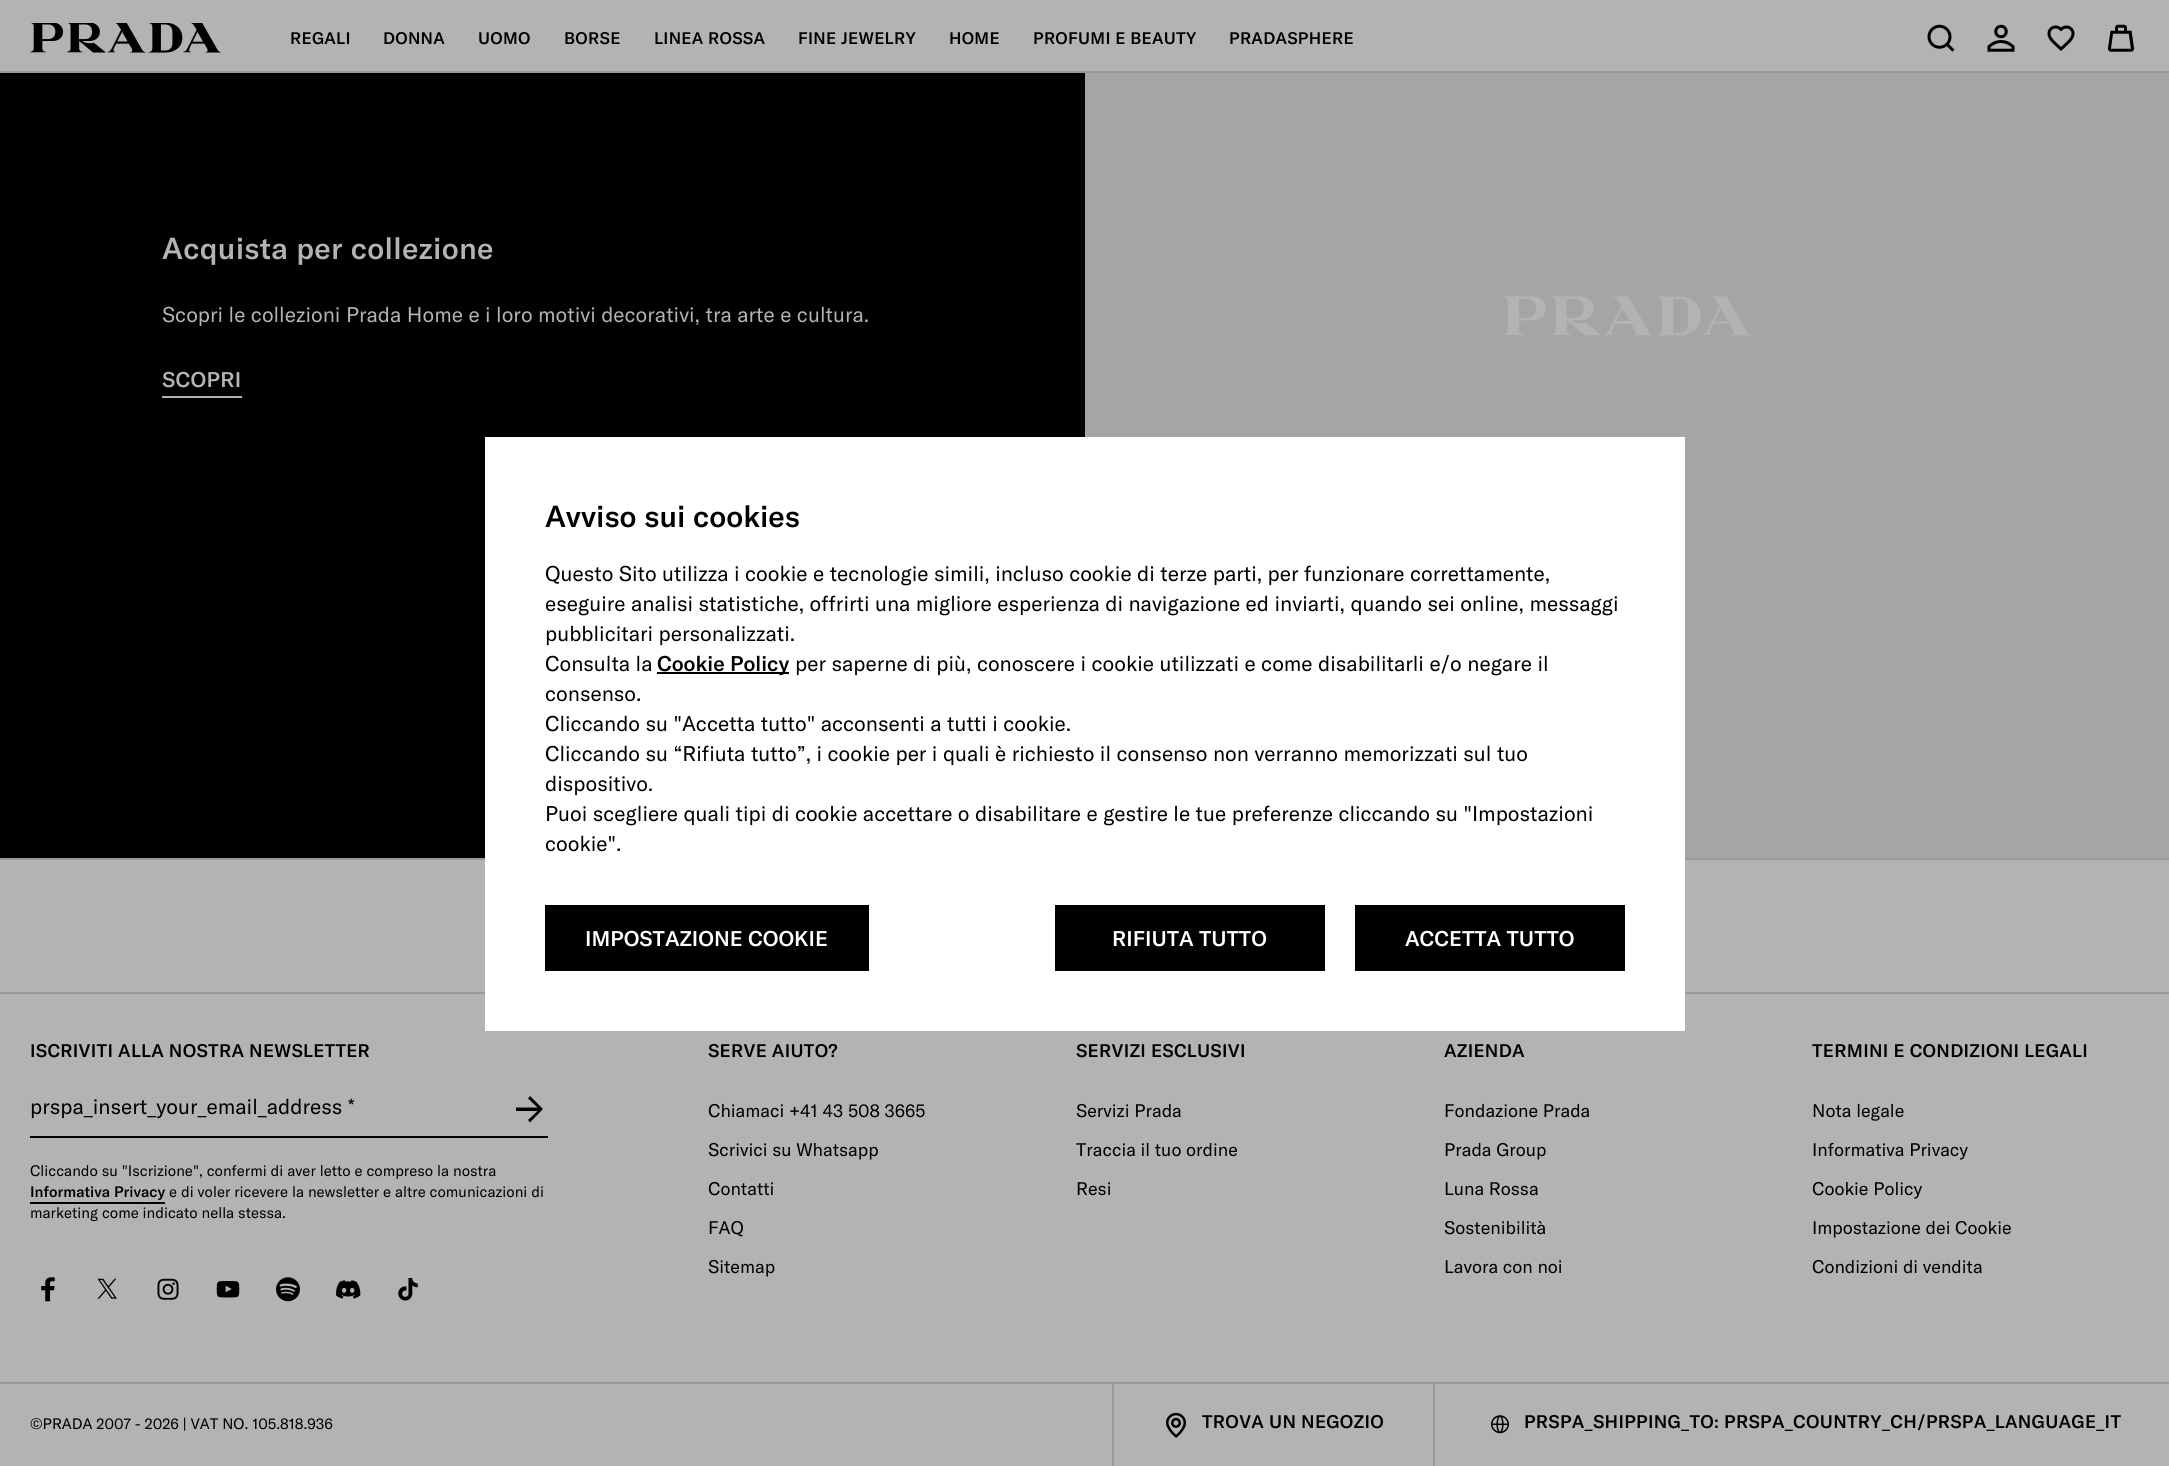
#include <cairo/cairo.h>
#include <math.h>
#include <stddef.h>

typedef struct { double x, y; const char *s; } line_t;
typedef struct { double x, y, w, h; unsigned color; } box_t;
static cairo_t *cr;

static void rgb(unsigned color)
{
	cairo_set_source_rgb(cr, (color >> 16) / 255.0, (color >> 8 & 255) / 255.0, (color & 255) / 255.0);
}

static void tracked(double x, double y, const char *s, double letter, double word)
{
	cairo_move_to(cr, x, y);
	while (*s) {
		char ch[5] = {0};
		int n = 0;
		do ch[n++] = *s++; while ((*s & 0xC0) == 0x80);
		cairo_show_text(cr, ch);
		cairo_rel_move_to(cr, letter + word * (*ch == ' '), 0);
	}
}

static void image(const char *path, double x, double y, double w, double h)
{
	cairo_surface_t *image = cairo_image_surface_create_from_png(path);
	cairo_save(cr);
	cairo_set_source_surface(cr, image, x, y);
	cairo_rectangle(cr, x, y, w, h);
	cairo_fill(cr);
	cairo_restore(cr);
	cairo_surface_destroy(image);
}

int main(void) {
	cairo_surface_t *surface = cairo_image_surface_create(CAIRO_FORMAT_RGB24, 2169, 1466);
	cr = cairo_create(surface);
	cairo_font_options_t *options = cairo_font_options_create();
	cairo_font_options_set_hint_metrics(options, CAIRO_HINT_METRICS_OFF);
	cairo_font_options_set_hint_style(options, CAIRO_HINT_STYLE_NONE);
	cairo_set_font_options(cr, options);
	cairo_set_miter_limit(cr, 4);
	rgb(0xb3b3b3);
	cairo_paint(cr);
	rgb(0x989a9d);
	cairo_rectangle(cr, 0, 71, 2169, 2);
	cairo_fill(cr);
	image("img/1.png", 30, 23, 191, 30);
	image("img/2.png", 1927, 24, 28, 28);
	image("img/3.png", 1987, 24, 28, 28);
	image("img/4.png", 2047, 25, 28, 26);
	image("img/5.png", 2107, 24, 28, 28);
	rgb(0x000000);
	cairo_rectangle(cr, 0, 73, 1085, 785);
	cairo_fill(cr);
	rgb(0xb3b3b3);
	cairo_rectangle(cr, 162, 396, 80, 2);
	cairo_fill(cr);
	image("img/6.png", 1085, 73, 1084, 785);
	{
		static const box_t items[] = {
			{0, 858, 2169, 2, 0x989a9d},
			{0, 992, 2169, 2, 0x989a9d},
			{30, 1136, 518, 2, 0x000000},
		};
		for (size_t i = 0; i < sizeof items / sizeof *items; i++) {
			rgb(items[i].color);
			cairo_rectangle(cr, items[i].x, items[i].y, items[i].w, items[i].h);
			cairo_fill(cr);
		}
	}
	cairo_new_path(cr);
	cairo_move_to(cr, 543, 1109);
	cairo_line_to(cr, 530, 1122.5);
	cairo_line_to(cr, 528, 1120);
	cairo_line_to(cr, 537.5, 1111);
	cairo_line_to(cr, 516, 1111);
	cairo_line_to(cr, 516, 1107.5);
	cairo_line_to(cr, 537.5, 1107.5);
	cairo_line_to(cr, 528, 1098.5);
	cairo_line_to(cr, 530, 1096);
	cairo_close_path(cr);
	cairo_fill(cr);
	cairo_rectangle(cr, 30, 1202, 135, 2);
	cairo_fill(cr);
	image("img/7.png", 41, 1277, 14, 25);
	image("img/8.png", 97, 1278, 20, 21);
	image("img/9.png", 157, 1278, 22, 22);
	image("img/10.png", 216, 1281, 24, 17);
	image("img/11.png", 276, 1277, 24, 25);
	image("img/12.png", 336, 1280, 25, 19);
	image("img/13.png", 398, 1278, 20, 23);
	rgb(0x989a9d);
	cairo_rectangle(cr, 0, 1382, 2169, 2);
	cairo_fill(cr);
	cairo_rectangle(cr, 1112, 1383, 2, 83);
	cairo_fill(cr);
	image("img/14.png", 1166, 1412, 20, 26);
	cairo_rectangle(cr, 1433, 1383, 2, 83);
	cairo_fill(cr);
	image("img/15.png", 1491, 1415, 18, 19);
	{
		static const box_t items[] = {
			{485, 437, 1200, 594, 0xffffff},
			{657, 672, 132, 2, 0x000000},
			{545, 905, 324, 66, 0x000000},
			{1055, 905, 270, 66, 0x000000},
			{1355, 905, 270, 66, 0x000000},
		};
		for (size_t i = 0; i < sizeof items / sizeof *items; i++) {
			rgb(items[i].color);
			cairo_rectangle(cr, items[i].x, items[i].y, items[i].w, items[i].h);
			cairo_fill(cr);
		}
	}
	cairo_select_font_face(cr, "GT America Medium", CAIRO_FONT_SLANT_NORMAL, CAIRO_FONT_WEIGHT_NORMAL);
	cairo_set_font_size(cr, 16.5);
	{
		static const line_t items[] = {
			{290, 44, "REGALI"},
			{383, 44, "DONNA"},
			{478, 44, "UOMO"},
			{564, 44, "BORSE"},
			{654, 44, "LINEA ROSSA"},
			{798, 44, "FINE JEWELRY"},
			{949, 44, "HOME"},
			{1033, 44, "PROFUMI E BEAUTY"},
			{1229, 44, "PRADASPHERE"},
		};
		for (size_t i = 0; i < sizeof items / sizeof *items; i++) {
			tracked(items[i].x, items[i].y, items[i].s, 0.3, 0);
		}
	}
	cairo_set_font_size(cr, 30);
	rgb(0xb3b3b3);
	tracked(162, 259, "Acquista per collezione", 0.3, 0);
	cairo_select_font_face(cr, "GT America", CAIRO_FONT_SLANT_NORMAL, CAIRO_FONT_WEIGHT_NORMAL);
	cairo_set_font_size(cr, 21);
	cairo_move_to(cr, 162, 322);
	cairo_show_text(cr, "Scopri le collezioni Prada Home e i loro motivi decorativi, tra arte e cultura.");
	cairo_select_font_face(cr, "GT America Medium", CAIRO_FONT_SLANT_NORMAL, CAIRO_FONT_WEIGHT_NORMAL);
	tracked(162, 387, "SCOPRI", 0.3, 0);
	cairo_set_font_size(cr, 18);
	rgb(0x000000);
	tracked(30, 1057, "ISCRIVITI ALLA NOSTRA NEWSLETTER", 0.3, 0);
	cairo_select_font_face(cr, "GT America", CAIRO_FONT_SLANT_NORMAL, CAIRO_FONT_WEIGHT_NORMAL);
	cairo_set_font_size(cr, 21);
	cairo_move_to(cr, 30, 1114);
	cairo_show_text(cr, "prspa_insert_your_email_address *");
	cairo_set_font_size(cr, 15);
	cairo_move_to(cr, 30, 1176);
	cairo_show_text(cr, "Cliccando su \"Iscrizione\", confermi di aver letto e compreso la nostra");
	cairo_select_font_face(cr, "GT America Medium", CAIRO_FONT_SLANT_NORMAL, CAIRO_FONT_WEIGHT_NORMAL);
	cairo_move_to(cr, 30, 1197);
	cairo_show_text(cr, "Informativa Privacy");
	cairo_select_font_face(cr, "GT America", CAIRO_FONT_SLANT_NORMAL, CAIRO_FONT_WEIGHT_NORMAL);
	cairo_move_to(cr, 169, 1197);
	cairo_show_text(cr, "e di voler ricevere la newsletter e altre comunicazioni di");
	cairo_move_to(cr, 30, 1218);
	cairo_show_text(cr, "marketing come indicato nella stessa.");
	cairo_select_font_face(cr, "GT America Medium", CAIRO_FONT_SLANT_NORMAL, CAIRO_FONT_WEIGHT_NORMAL);
	cairo_set_font_size(cr, 18);
	tracked(708, 1057, "SERVE AIUTO?", 0.3, 0);
	cairo_select_font_face(cr, "GT America", CAIRO_FONT_SLANT_NORMAL, CAIRO_FONT_WEIGHT_NORMAL);
	{
		static const line_t items[] = {
			{708, 1117, "Chiamaci +41 43 508 3665"},
			{708, 1156, "Scrivici su Whatsapp"},
			{708, 1195, "Contatti"},
			{708, 1234, "FAQ"},
			{708, 1273, "Sitemap"},
		};
		for (size_t i = 0; i < sizeof items / sizeof *items; i++) {
			cairo_move_to(cr, items[i].x, items[i].y);
			cairo_show_text(cr, items[i].s);
		}
	}
	cairo_select_font_face(cr, "GT America Medium", CAIRO_FONT_SLANT_NORMAL, CAIRO_FONT_WEIGHT_NORMAL);
	tracked(1076, 1057, "SERVIZI ESCLUSIVI", 0.3, 0);
	cairo_select_font_face(cr, "GT America", CAIRO_FONT_SLANT_NORMAL, CAIRO_FONT_WEIGHT_NORMAL);
	{
		static const line_t items[] = {
			{1076, 1117, "Servizi Prada"},
			{1076, 1156, "Traccia il tuo ordine"},
			{1076, 1195, "Resi"},
		};
		for (size_t i = 0; i < sizeof items / sizeof *items; i++) {
			cairo_move_to(cr, items[i].x, items[i].y);
			cairo_show_text(cr, items[i].s);
		}
	}
	cairo_select_font_face(cr, "GT America Medium", CAIRO_FONT_SLANT_NORMAL, CAIRO_FONT_WEIGHT_NORMAL);
	tracked(1444, 1057, "AZIENDA", 0.3, 0);
	cairo_select_font_face(cr, "GT America", CAIRO_FONT_SLANT_NORMAL, CAIRO_FONT_WEIGHT_NORMAL);
	{
		static const line_t items[] = {
			{1444, 1117, "Fondazione Prada"},
			{1444, 1156, "Prada Group"},
			{1444, 1195, "Luna Rossa"},
			{1444, 1234, "Sostenibilità"},
			{1444, 1273, "Lavora con noi"},
		};
		for (size_t i = 0; i < sizeof items / sizeof *items; i++) {
			cairo_move_to(cr, items[i].x, items[i].y);
			cairo_show_text(cr, items[i].s);
		}
	}
	cairo_select_font_face(cr, "GT America Medium", CAIRO_FONT_SLANT_NORMAL, CAIRO_FONT_WEIGHT_NORMAL);
	tracked(1812, 1057, "TERMINI E CONDIZIONI LEGALI", 0.3, 0);
	cairo_select_font_face(cr, "GT America", CAIRO_FONT_SLANT_NORMAL, CAIRO_FONT_WEIGHT_NORMAL);
	{
		static const line_t items[] = {
			{1812, 1117, "Nota legale"},
			{1812, 1156, "Informativa Privacy"},
			{1812, 1195, "Cookie Policy"},
			{1812, 1234, "Impostazione dei Cookie"},
			{1812, 1273, "Condizioni di vendita"},
		};
		for (size_t i = 0; i < sizeof items / sizeof *items; i++) {
			cairo_move_to(cr, items[i].x, items[i].y);
			cairo_show_text(cr, items[i].s);
		}
	}
	cairo_set_font_size(cr, 15);
	cairo_move_to(cr, 30, 1429);
	cairo_show_text(cr, "©PRADA 2007 - 2026 | VAT NO. 105.818.936");
	cairo_select_font_face(cr, "GT America Medium", CAIRO_FONT_SLANT_NORMAL, CAIRO_FONT_WEIGHT_NORMAL);
	cairo_set_font_size(cr, 18);
	tracked(1202, 1428, "TROVA UN NEGOZIO", 0.3, 0);
	tracked(1524, 1428, "PRSPA_SHIPPING_TO: PRSPA_COUNTRY_CH/PRSPA_LANGUAGE_IT", 0.3, 0);
	cairo_set_font_size(cr, 30);
	cairo_move_to(cr, 545, 527);
	cairo_show_text(cr, "Avviso sui cookies");
	cairo_select_font_face(cr, "GT America", CAIRO_FONT_SLANT_NORMAL, CAIRO_FONT_WEIGHT_NORMAL);
	cairo_set_font_size(cr, 21);
	{
		static const line_t items[] = {
			{545, 581, "Questo Sito utilizza i cookie e tecnologie simili, incluso cookie di terze parti, per funzionare correttamente,"},
			{545, 611, "eseguire analisi statistiche, offrirti una migliore esperienza di navigazione ed inviarti, quando sei online, messaggi"},
			{545, 641, "pubblicitari personalizzati."},
			{545, 671, "Consulta la"},
		};
		for (size_t i = 0; i < sizeof items / sizeof *items; i++) {
			cairo_move_to(cr, items[i].x, items[i].y);
			cairo_show_text(cr, items[i].s);
		}
	}
	cairo_select_font_face(cr, "GT America Medium", CAIRO_FONT_SLANT_NORMAL, CAIRO_FONT_WEIGHT_NORMAL);
	cairo_move_to(cr, 657, 671);
	cairo_show_text(cr, "Cookie Policy");
	cairo_select_font_face(cr, "GT America", CAIRO_FONT_SLANT_NORMAL, CAIRO_FONT_WEIGHT_NORMAL);
	{
		static const line_t items[] = {
			{795, 671, "per saperne di più, conoscere i cookie utilizzati e come disabilitarli e/o negare il"},
			{545, 701, "consenso."},
			{545, 731, "Cliccando su \"Accetta tutto\" acconsenti a tutti i cookie."},
			{545, 761, "Cliccando su “Rifiuta tutto”, i cookie per i quali è richiesto il consenso non verranno memorizzati sul tuo"},
			{545, 791, "dispositivo."},
			{545, 821, "Puoi scegliere quali tipi di cookie accettare o disabilitare e gestire le tue preferenze cliccando su \"Impostazioni"},
			{545, 851, "cookie\"."},
		};
		for (size_t i = 0; i < sizeof items / sizeof *items; i++) {
			cairo_move_to(cr, items[i].x, items[i].y);
			cairo_show_text(cr, items[i].s);
		}
	}
	cairo_select_font_face(cr, "GT America Medium", CAIRO_FONT_SLANT_NORMAL, CAIRO_FONT_WEIGHT_NORMAL);
	rgb(0xffffff);
	{
		static const line_t items[] = {
			{585, 946, "IMPOSTAZIONE COOKIE"},
			{1112, 946, "RIFIUTA TUTTO"},
			{1405, 946, "ACCETTA TUTTO"},
		};
		for (size_t i = 0; i < sizeof items / sizeof *items; i++) {
			cairo_move_to(cr, items[i].x, items[i].y);
			cairo_show_text(cr, items[i].s);
		}
	}
	cairo_surface_write_to_png(surface, "page.png");
	cairo_font_options_destroy(options);
	cairo_destroy(cr);
	cairo_surface_destroy(surface);
	return 0;
}
